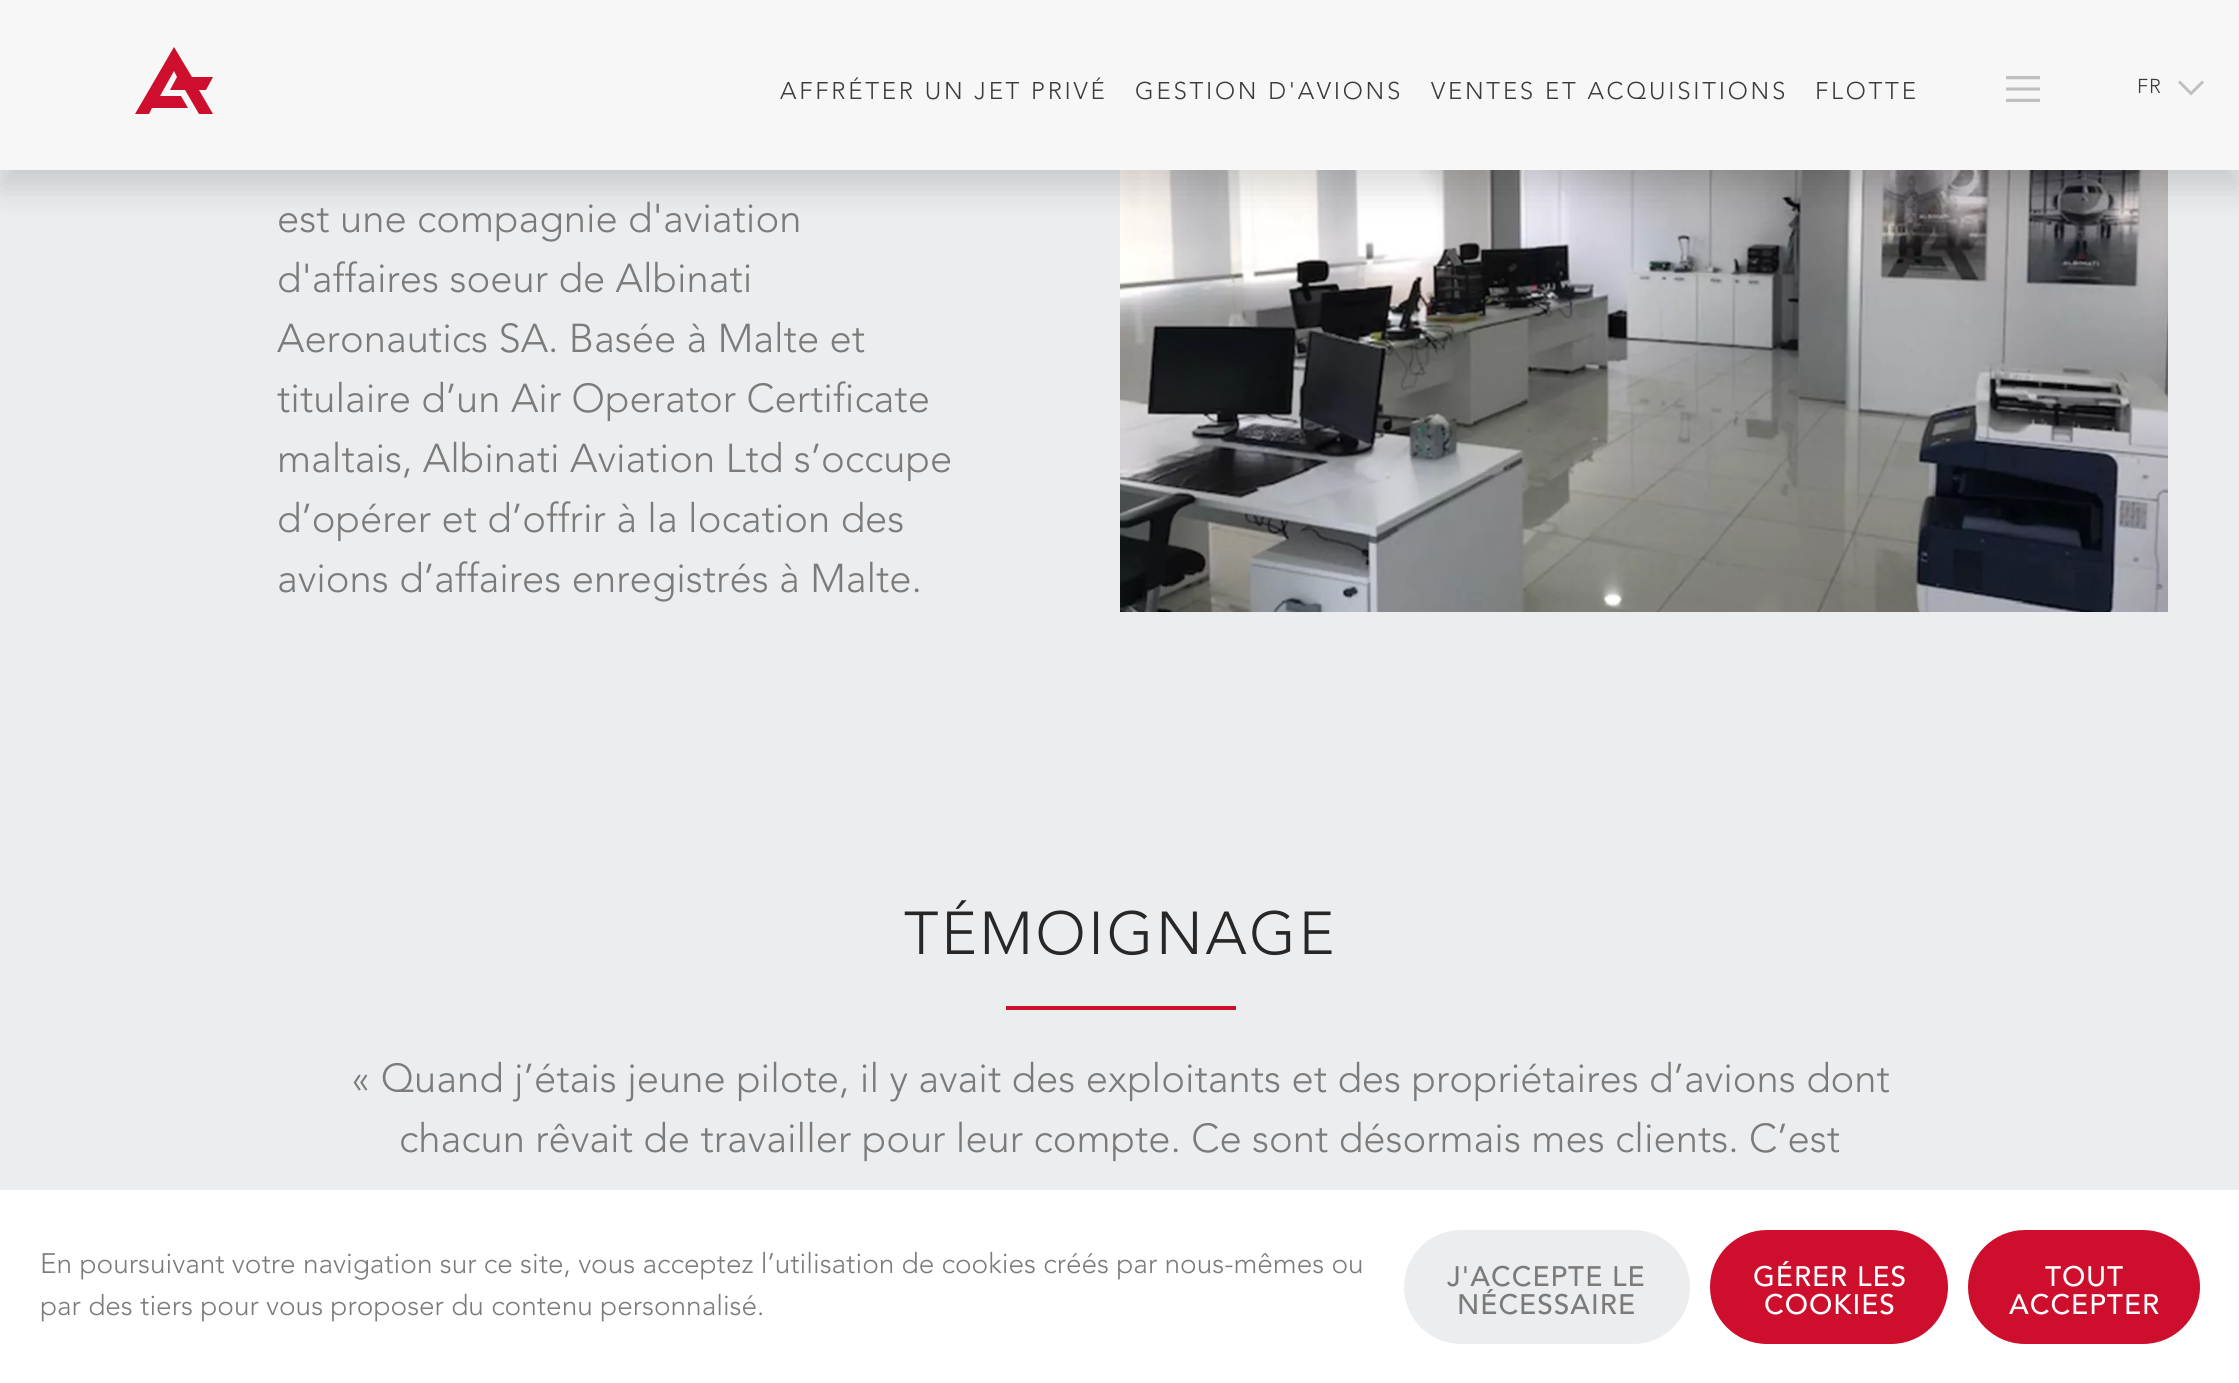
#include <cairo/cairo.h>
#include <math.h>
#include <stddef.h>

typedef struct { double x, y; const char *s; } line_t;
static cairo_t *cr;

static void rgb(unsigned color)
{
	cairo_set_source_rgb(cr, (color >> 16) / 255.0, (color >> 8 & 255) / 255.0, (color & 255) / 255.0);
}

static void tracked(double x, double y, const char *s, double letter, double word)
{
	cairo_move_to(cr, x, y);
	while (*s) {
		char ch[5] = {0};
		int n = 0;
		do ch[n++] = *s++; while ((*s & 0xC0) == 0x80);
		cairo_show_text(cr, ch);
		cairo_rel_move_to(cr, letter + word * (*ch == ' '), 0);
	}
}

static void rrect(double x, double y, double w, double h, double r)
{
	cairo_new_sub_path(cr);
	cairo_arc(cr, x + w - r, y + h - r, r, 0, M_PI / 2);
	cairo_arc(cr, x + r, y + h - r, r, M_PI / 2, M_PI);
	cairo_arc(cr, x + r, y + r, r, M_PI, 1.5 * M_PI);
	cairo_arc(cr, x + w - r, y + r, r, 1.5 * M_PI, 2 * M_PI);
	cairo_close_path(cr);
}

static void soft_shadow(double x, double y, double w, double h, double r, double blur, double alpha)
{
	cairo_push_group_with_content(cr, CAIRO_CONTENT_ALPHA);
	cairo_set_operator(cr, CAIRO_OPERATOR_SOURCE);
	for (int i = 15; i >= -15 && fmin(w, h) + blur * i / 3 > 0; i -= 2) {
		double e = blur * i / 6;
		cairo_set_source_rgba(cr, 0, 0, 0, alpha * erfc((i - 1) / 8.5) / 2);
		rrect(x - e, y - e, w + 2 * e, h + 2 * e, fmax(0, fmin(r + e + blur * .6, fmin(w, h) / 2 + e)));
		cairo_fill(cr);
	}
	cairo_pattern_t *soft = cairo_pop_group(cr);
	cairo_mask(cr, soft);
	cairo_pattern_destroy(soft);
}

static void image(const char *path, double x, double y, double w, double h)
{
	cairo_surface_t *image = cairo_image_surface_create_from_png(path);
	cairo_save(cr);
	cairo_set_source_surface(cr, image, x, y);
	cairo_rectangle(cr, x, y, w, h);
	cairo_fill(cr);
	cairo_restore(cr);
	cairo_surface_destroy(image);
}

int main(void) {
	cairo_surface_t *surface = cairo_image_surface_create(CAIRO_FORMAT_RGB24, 2239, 1383);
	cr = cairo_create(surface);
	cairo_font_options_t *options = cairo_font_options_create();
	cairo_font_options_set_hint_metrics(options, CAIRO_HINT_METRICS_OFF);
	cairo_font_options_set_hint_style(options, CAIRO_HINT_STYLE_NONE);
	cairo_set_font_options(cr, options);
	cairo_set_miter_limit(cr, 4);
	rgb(0xecedef);
	cairo_paint(cr);
	image("img/2.png", 1120, 170, 1048, 442);
	rgb(0x000000);
	soft_shadow(0, 18, 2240, 170, 0, 17, 0.15);
	rgb(0xf7f7f7);
	cairo_rectangle(cr, 0, 0, 2239, 170);
	cairo_fill(cr);
	rgb(0xce0e2d);
	cairo_new_path(cr);
	cairo_move_to(cr, 174, 47);
	cairo_line_to(cr, 135, 114);
	cairo_line_to(cr, 149, 114);
	cairo_line_to(cr, 152, 108);
	cairo_line_to(cr, 188, 108);
	cairo_line_to(cr, 181, 96);
	cairo_line_to(cr, 160, 96);
	cairo_line_to(cr, 174, 71);
	cairo_line_to(cr, 177, 77);
	cairo_line_to(cr, 170, 90);
	cairo_line_to(cr, 185, 90);
	cairo_line_to(cr, 199, 114);
	cairo_line_to(cr, 213, 114);
	cairo_line_to(cr, 199, 90);
	cairo_line_to(cr, 206, 90);
	cairo_line_to(cr, 213, 77);
	cairo_line_to(cr, 192, 77);
	cairo_close_path(cr);
	cairo_fill(cr);
	image("img/1.png", 2006, 76, 34, 26);
	cairo_new_path(cr);
	cairo_move_to(cr, 2179, 81.5);
	cairo_line_to(cr, 2191, 93.5);
	cairo_line_to(cr, 2203, 81.5);
	rgb(0xbfbfbf);
	cairo_set_line_width(cr, 2.9);
	cairo_stroke(cr);
	rgb(0xce0e2d);
	cairo_rectangle(cr, 1006, 1006, 230, 4);
	cairo_fill(cr);
	rgb(0xffffff);
	cairo_rectangle(cr, 0, 1190, 2239, 193);
	cairo_fill(cr);
	rgb(0xecedef);
	rrect(1404, 1230, 286, 114, 57);
	cairo_fill(cr);
	rgb(0xce0e2d);
	rrect(1710, 1230, 238, 114, 57);
	cairo_fill(cr);
	rrect(1968, 1230, 232, 114, 57);
	cairo_fill(cr);
	cairo_select_font_face(cr, "Avenir Light", CAIRO_FONT_SLANT_NORMAL, CAIRO_FONT_WEIGHT_NORMAL);
	cairo_set_font_size(cr, 24);
	rgb(0x3b3b3b);
	{
		static const line_t items[] = {
			{780, 99, "AFFRÉTER UN JET PRIVÉ"},
			{1135, 99, "GESTION D'AVIONS"},
			{1431, 99, "VENTES ET ACQUISITIONS"},
			{1815, 99, "FLOTTE"},
		};
		for (size_t i = 0; i < sizeof items / sizeof *items; i++) {
			tracked(items[i].x, items[i].y, items[i].s, 2.75, 0);
		}
	}
	cairo_set_font_size(cr, 20);
	tracked(2137, 93, "FR", 1, 0);
	cairo_set_font_size(cr, 40);
	rgb(0x7b7b7b);
	{
		static const line_t items[] = {
			{277, 232, "est une compagnie d'aviation"},
			{277, 292, "d'affaires soeur de Albinati"},
			{277, 352, "Aeronautics SA. Basée à Malte et"},
			{277, 412, "titulaire d’un Air Operator Certificate"},
			{277, 472, "maltais, Albinati Aviation Ltd s’occupe"},
			{277, 532, "d’opérer et d’offrir à la location des"},
			{277, 592, "avions d’affaires enregistrés à Malte."},
		};
		for (size_t i = 0; i < sizeof items / sizeof *items; i++) {
			cairo_move_to(cr, items[i].x, items[i].y);
			cairo_show_text(cr, items[i].s);
		}
	}
	cairo_set_font_size(cr, 60);
	rgb(0x272727);
	tracked(904, 954, "TÉMOIGNAGE", 2.75, 0);
	cairo_set_font_size(cr, 40);
	rgb(0x7b7b7b);
	cairo_move_to(cr, 351, 1092);
	cairo_show_text(cr, "« Quand j’étais jeune pilote, il y avait des exploitants et des propriétaires d’avions dont");
	cairo_move_to(cr, 399, 1152);
	cairo_show_text(cr, "chacun rêvait de travailler pour leur compte. Ce sont désormais mes clients. C’est");
	cairo_set_font_size(cr, 28);
	cairo_move_to(cr, 40, 1273);
	cairo_show_text(cr, "En poursuivant votre navigation sur ce site, vous acceptez l’utilisation de cookies créés par nous-mêmes ou");
	cairo_move_to(cr, 40, 1315);
	cairo_show_text(cr, "par des tiers pour vous proposer du contenu personnalisé.");
	cairo_select_font_face(cr, "Avenir Medium", CAIRO_FONT_SLANT_NORMAL, CAIRO_FONT_WEIGHT_NORMAL);
	tracked(1447, 1286, "J'ACCEPTE LE", 1, 0);
	tracked(1457, 1314, "NÉCESSAIRE", 1, 0);
	rgb(0xffffff);
	{
		static const line_t items[] = {
			{1753, 1286, "GÉRER LES"},
			{1764, 1314, "COOKIES"},
			{2045, 1286, "TOUT"},
			{2009, 1314, "ACCEPTER"},
		};
		for (size_t i = 0; i < sizeof items / sizeof *items; i++) {
			tracked(items[i].x, items[i].y, items[i].s, 1, 0);
		}
	}
	cairo_surface_write_to_png(surface, "page.png");
	cairo_font_options_destroy(options);
	cairo_destroy(cr);
	cairo_surface_destroy(surface);
	return 0;
}
